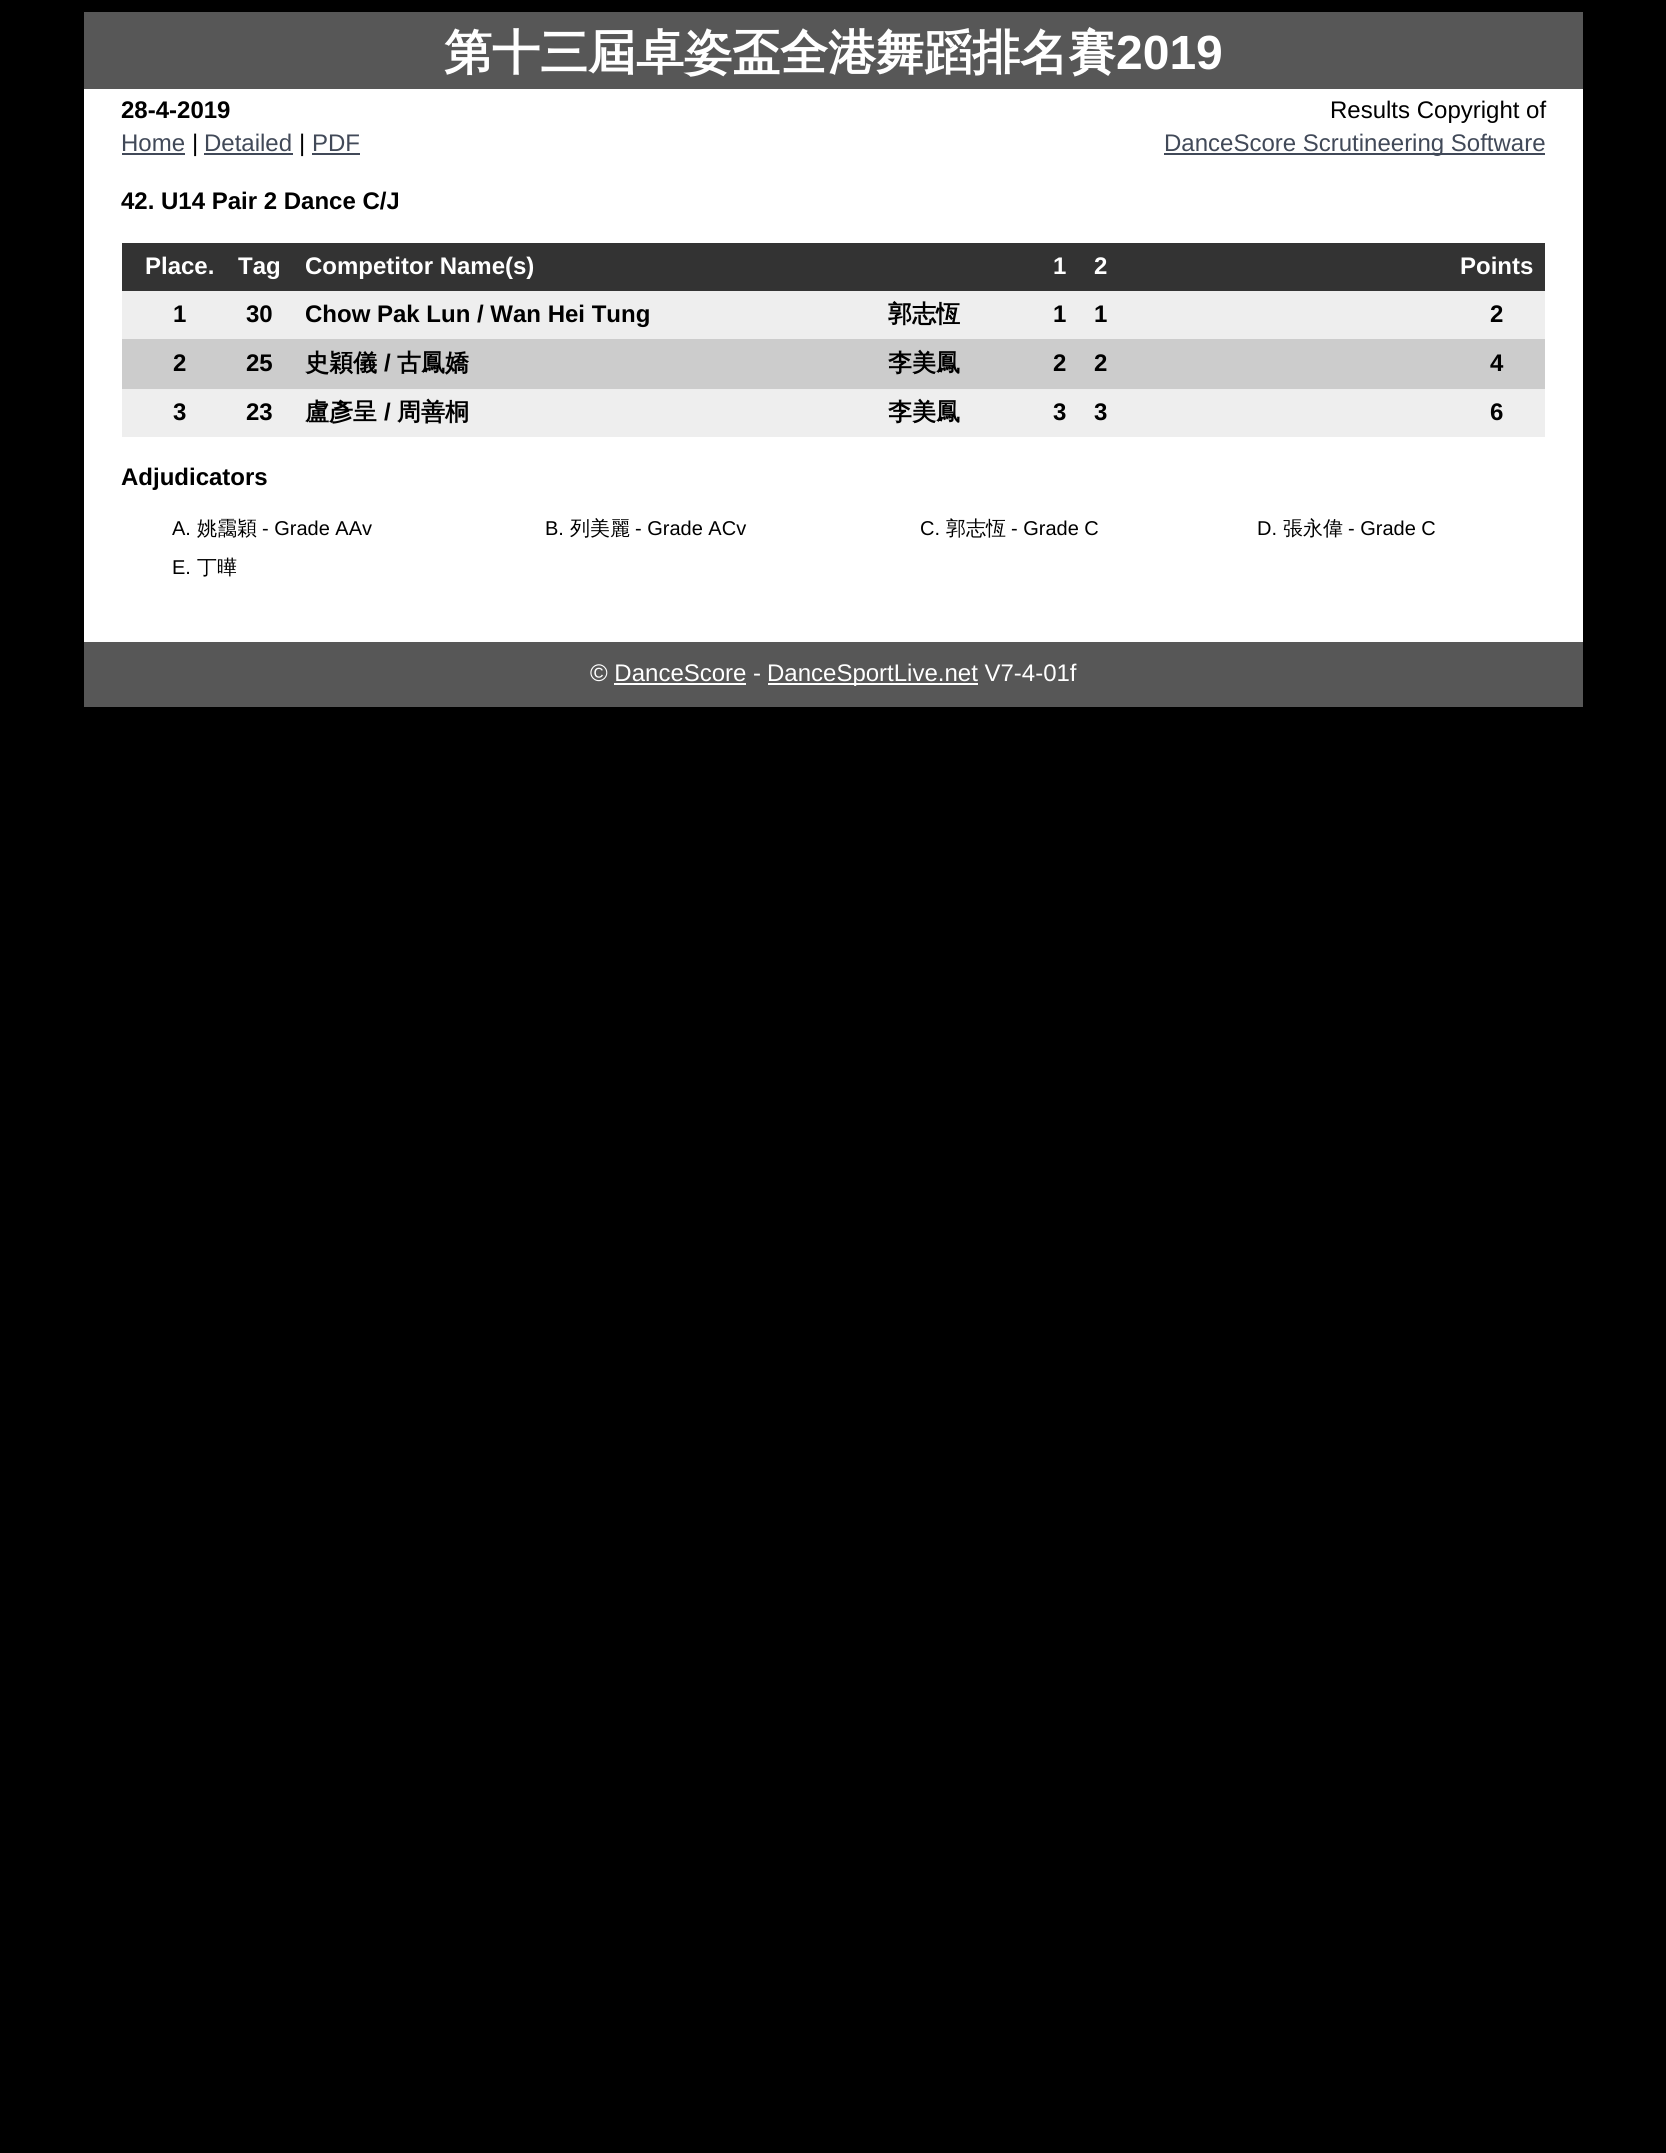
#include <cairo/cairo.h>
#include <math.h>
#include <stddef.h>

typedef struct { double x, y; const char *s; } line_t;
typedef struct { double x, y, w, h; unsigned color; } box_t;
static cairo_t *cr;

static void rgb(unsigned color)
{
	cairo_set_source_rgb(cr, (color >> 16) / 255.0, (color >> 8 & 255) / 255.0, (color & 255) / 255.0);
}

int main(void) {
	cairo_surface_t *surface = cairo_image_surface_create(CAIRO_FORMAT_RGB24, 1666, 2153);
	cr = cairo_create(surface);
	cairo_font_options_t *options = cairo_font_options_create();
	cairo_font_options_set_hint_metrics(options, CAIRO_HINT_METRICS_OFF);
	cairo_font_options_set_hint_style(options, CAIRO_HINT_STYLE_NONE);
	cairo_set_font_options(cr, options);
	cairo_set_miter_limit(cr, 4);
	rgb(0x000000);
	cairo_paint(cr);
	{
		static const box_t items[] = {
			{84, 89, 1499, 553, 0xffffff},
			{84, 12, 1499, 77, 0x575757},
			{122, 153, 63, 2, 0x414958},
			{204, 153, 89, 2, 0x414958},
			{312, 153, 48, 2, 0x414958},
			{1164, 153, 381, 2, 0x414958},
			{122, 243, 1423, 48, 0x333333},
			{122, 291, 1423, 48, 0xeeeeee},
			{122, 339, 1423, 50, 0xcccccc},
			{122, 389, 1423, 48, 0xeeeeee},
			{84, 642, 1499, 65, 0x575757},
			{768, 683, 210, 2, 0xffffff},
			{614, 683, 132, 2, 0xffffff},
		};
		for (size_t i = 0; i < sizeof items / sizeof *items; i++) {
			rgb(items[i].color);
			cairo_rectangle(cr, items[i].x, items[i].y, items[i].w, items[i].h);
			cairo_fill(cr);
		}
	}
	cairo_select_font_face(cr, "WenQuanYi Zen Hei", CAIRO_FONT_SLANT_NORMAL, CAIRO_FONT_WEIGHT_BOLD);
	cairo_set_font_size(cr, 48);
	cairo_move_to(cr, 444, 69);
	cairo_show_text(cr, "第十三屆卓姿盃全港舞蹈排名賽");
	cairo_select_font_face(cr, "Liberation Sans", CAIRO_FONT_SLANT_NORMAL, CAIRO_FONT_WEIGHT_BOLD);
	cairo_move_to(cr, 1116, 69);
	cairo_show_text(cr, "2019");
	cairo_set_font_size(cr, 24);
	rgb(0x000000);
	cairo_move_to(cr, 121, 118);
	cairo_show_text(cr, "28-4-2019");
	cairo_select_font_face(cr, "Liberation Sans", CAIRO_FONT_SLANT_NORMAL, CAIRO_FONT_WEIGHT_NORMAL);
	cairo_move_to(cr, 1330, 118);
	cairo_show_text(cr, "Results Copyright of");
	rgb(0x414958);
	cairo_move_to(cr, 121, 151);
	cairo_show_text(cr, "Home");
	rgb(0x000000);
	cairo_move_to(cr, 192, 151);
	cairo_show_text(cr, "|");
	rgb(0x414958);
	cairo_move_to(cr, 204, 151);
	cairo_show_text(cr, "Detailed");
	rgb(0x000000);
	cairo_move_to(cr, 299, 151);
	cairo_show_text(cr, "|");
	rgb(0x414958);
	cairo_move_to(cr, 312, 151);
	cairo_show_text(cr, "PDF");
	cairo_move_to(cr, 1164, 151);
	cairo_show_text(cr, "DanceScore Scrutineering Software");
	cairo_select_font_face(cr, "Liberation Sans", CAIRO_FONT_SLANT_NORMAL, CAIRO_FONT_WEIGHT_BOLD);
	rgb(0x000000);
	cairo_move_to(cr, 121, 209);
	cairo_show_text(cr, "42. U14 Pair 2 Dance C/J");
	rgb(0xffffff);
	{
		static const line_t items[] = {
			{145, 274, "Place."},
			{238, 274, "Tag"},
			{305, 274, "Competitor Name(s)"},
			{1053, 274, "1"},
			{1094, 274, "2"},
			{1460, 274, "Points"},
		};
		for (size_t i = 0; i < sizeof items / sizeof *items; i++) {
			cairo_move_to(cr, items[i].x, items[i].y);
			cairo_show_text(cr, items[i].s);
		}
	}
	rgb(0x000000);
	{
		static const line_t items[] = {
			{173, 322, "1"},
			{246, 322, "30"},
			{305, 322, "Chow Pak Lun / Wan Hei Tung"},
		};
		for (size_t i = 0; i < sizeof items / sizeof *items; i++) {
			cairo_move_to(cr, items[i].x, items[i].y);
			cairo_show_text(cr, items[i].s);
		}
	}
	cairo_select_font_face(cr, "WenQuanYi Zen Hei", CAIRO_FONT_SLANT_NORMAL, CAIRO_FONT_WEIGHT_BOLD);
	cairo_move_to(cr, 888, 322);
	cairo_show_text(cr, "郭志恆");
	cairo_select_font_face(cr, "Liberation Sans", CAIRO_FONT_SLANT_NORMAL, CAIRO_FONT_WEIGHT_BOLD);
	{
		static const line_t items[] = {
			{1053, 322, "1"},
			{1094, 322, "1"},
			{1490, 322, "2"},
			{173, 371, "2"},
			{246, 371, "25"},
		};
		for (size_t i = 0; i < sizeof items / sizeof *items; i++) {
			cairo_move_to(cr, items[i].x, items[i].y);
			cairo_show_text(cr, items[i].s);
		}
	}
	cairo_select_font_face(cr, "WenQuanYi Zen Hei", CAIRO_FONT_SLANT_NORMAL, CAIRO_FONT_WEIGHT_BOLD);
	cairo_move_to(cr, 305, 371);
	cairo_show_text(cr, "史穎儀");
	cairo_select_font_face(cr, "Liberation Sans", CAIRO_FONT_SLANT_NORMAL, CAIRO_FONT_WEIGHT_BOLD);
	cairo_move_to(cr, 384, 371);
	cairo_show_text(cr, "/");
	cairo_select_font_face(cr, "WenQuanYi Zen Hei", CAIRO_FONT_SLANT_NORMAL, CAIRO_FONT_WEIGHT_BOLD);
	cairo_move_to(cr, 397, 371);
	cairo_show_text(cr, "古鳳嬌");
	cairo_move_to(cr, 888, 371);
	cairo_show_text(cr, "李美鳳");
	cairo_select_font_face(cr, "Liberation Sans", CAIRO_FONT_SLANT_NORMAL, CAIRO_FONT_WEIGHT_BOLD);
	{
		static const line_t items[] = {
			{1053, 371, "2"},
			{1094, 371, "2"},
			{1490, 371, "4"},
			{173, 420, "3"},
			{246, 420, "23"},
		};
		for (size_t i = 0; i < sizeof items / sizeof *items; i++) {
			cairo_move_to(cr, items[i].x, items[i].y);
			cairo_show_text(cr, items[i].s);
		}
	}
	cairo_select_font_face(cr, "WenQuanYi Zen Hei", CAIRO_FONT_SLANT_NORMAL, CAIRO_FONT_WEIGHT_BOLD);
	cairo_move_to(cr, 305, 420);
	cairo_show_text(cr, "盧彥呈");
	cairo_select_font_face(cr, "Liberation Sans", CAIRO_FONT_SLANT_NORMAL, CAIRO_FONT_WEIGHT_BOLD);
	cairo_move_to(cr, 384, 420);
	cairo_show_text(cr, "/");
	cairo_select_font_face(cr, "WenQuanYi Zen Hei", CAIRO_FONT_SLANT_NORMAL, CAIRO_FONT_WEIGHT_BOLD);
	cairo_move_to(cr, 397, 420);
	cairo_show_text(cr, "周善桐");
	cairo_move_to(cr, 888, 420);
	cairo_show_text(cr, "李美鳳");
	cairo_select_font_face(cr, "Liberation Sans", CAIRO_FONT_SLANT_NORMAL, CAIRO_FONT_WEIGHT_BOLD);
	{
		static const line_t items[] = {
			{1053, 420, "3"},
			{1094, 420, "3"},
			{1490, 420, "6"},
			{121, 485, "Adjudicators"},
		};
		for (size_t i = 0; i < sizeof items / sizeof *items; i++) {
			cairo_move_to(cr, items[i].x, items[i].y);
			cairo_show_text(cr, items[i].s);
		}
	}
	cairo_select_font_face(cr, "Liberation Sans", CAIRO_FONT_SLANT_NORMAL, CAIRO_FONT_WEIGHT_NORMAL);
	cairo_set_font_size(cr, 20);
	cairo_move_to(cr, 172, 535);
	cairo_show_text(cr, "A.");
	cairo_select_font_face(cr, "WenQuanYi Zen Hei Medium", CAIRO_FONT_SLANT_NORMAL, CAIRO_FONT_WEIGHT_NORMAL);
	cairo_move_to(cr, 197, 535);
	cairo_show_text(cr, "姚靄穎");
	cairo_select_font_face(cr, "Liberation Sans", CAIRO_FONT_SLANT_NORMAL, CAIRO_FONT_WEIGHT_NORMAL);
	cairo_move_to(cr, 262, 535);
	cairo_show_text(cr, "- Grade AAv");
	cairo_move_to(cr, 545, 535);
	cairo_show_text(cr, "B.");
	cairo_select_font_face(cr, "WenQuanYi Zen Hei Medium", CAIRO_FONT_SLANT_NORMAL, CAIRO_FONT_WEIGHT_NORMAL);
	cairo_move_to(cr, 570, 535);
	cairo_show_text(cr, "列美麗");
	cairo_select_font_face(cr, "Liberation Sans", CAIRO_FONT_SLANT_NORMAL, CAIRO_FONT_WEIGHT_NORMAL);
	cairo_move_to(cr, 635, 535);
	cairo_show_text(cr, "- Grade ACv");
	cairo_move_to(cr, 920, 535);
	cairo_show_text(cr, "C.");
	cairo_select_font_face(cr, "WenQuanYi Zen Hei Medium", CAIRO_FONT_SLANT_NORMAL, CAIRO_FONT_WEIGHT_NORMAL);
	cairo_move_to(cr, 946, 535);
	cairo_show_text(cr, "郭志恆");
	cairo_select_font_face(cr, "Liberation Sans", CAIRO_FONT_SLANT_NORMAL, CAIRO_FONT_WEIGHT_NORMAL);
	cairo_move_to(cr, 1011, 535);
	cairo_show_text(cr, "- Grade C");
	cairo_move_to(cr, 1257, 535);
	cairo_show_text(cr, "D.");
	cairo_select_font_face(cr, "WenQuanYi Zen Hei Medium", CAIRO_FONT_SLANT_NORMAL, CAIRO_FONT_WEIGHT_NORMAL);
	cairo_move_to(cr, 1283, 535);
	cairo_show_text(cr, "張永偉");
	cairo_select_font_face(cr, "Liberation Sans", CAIRO_FONT_SLANT_NORMAL, CAIRO_FONT_WEIGHT_NORMAL);
	cairo_move_to(cr, 1348, 535);
	cairo_show_text(cr, "- Grade C");
	cairo_move_to(cr, 172, 574);
	cairo_show_text(cr, "E.");
	cairo_select_font_face(cr, "WenQuanYi Zen Hei Medium", CAIRO_FONT_SLANT_NORMAL, CAIRO_FONT_WEIGHT_NORMAL);
	cairo_move_to(cr, 197, 574);
	cairo_show_text(cr, "丁曄");
	cairo_select_font_face(cr, "Liberation Sans", CAIRO_FONT_SLANT_NORMAL, CAIRO_FONT_WEIGHT_NORMAL);
	cairo_set_font_size(cr, 24);
	rgb(0xffffff);
	cairo_move_to(cr, 590, 681);
	cairo_show_text(cr, "© DanceScore -");
	cairo_move_to(cr, 767, 681);
	cairo_show_text(cr, "DanceSportLive.net V7-4-01f");
	cairo_surface_write_to_png(surface, "page.png");
	cairo_font_options_destroy(options);
	cairo_destroy(cr);
	cairo_surface_destroy(surface);
	return 0;
}
